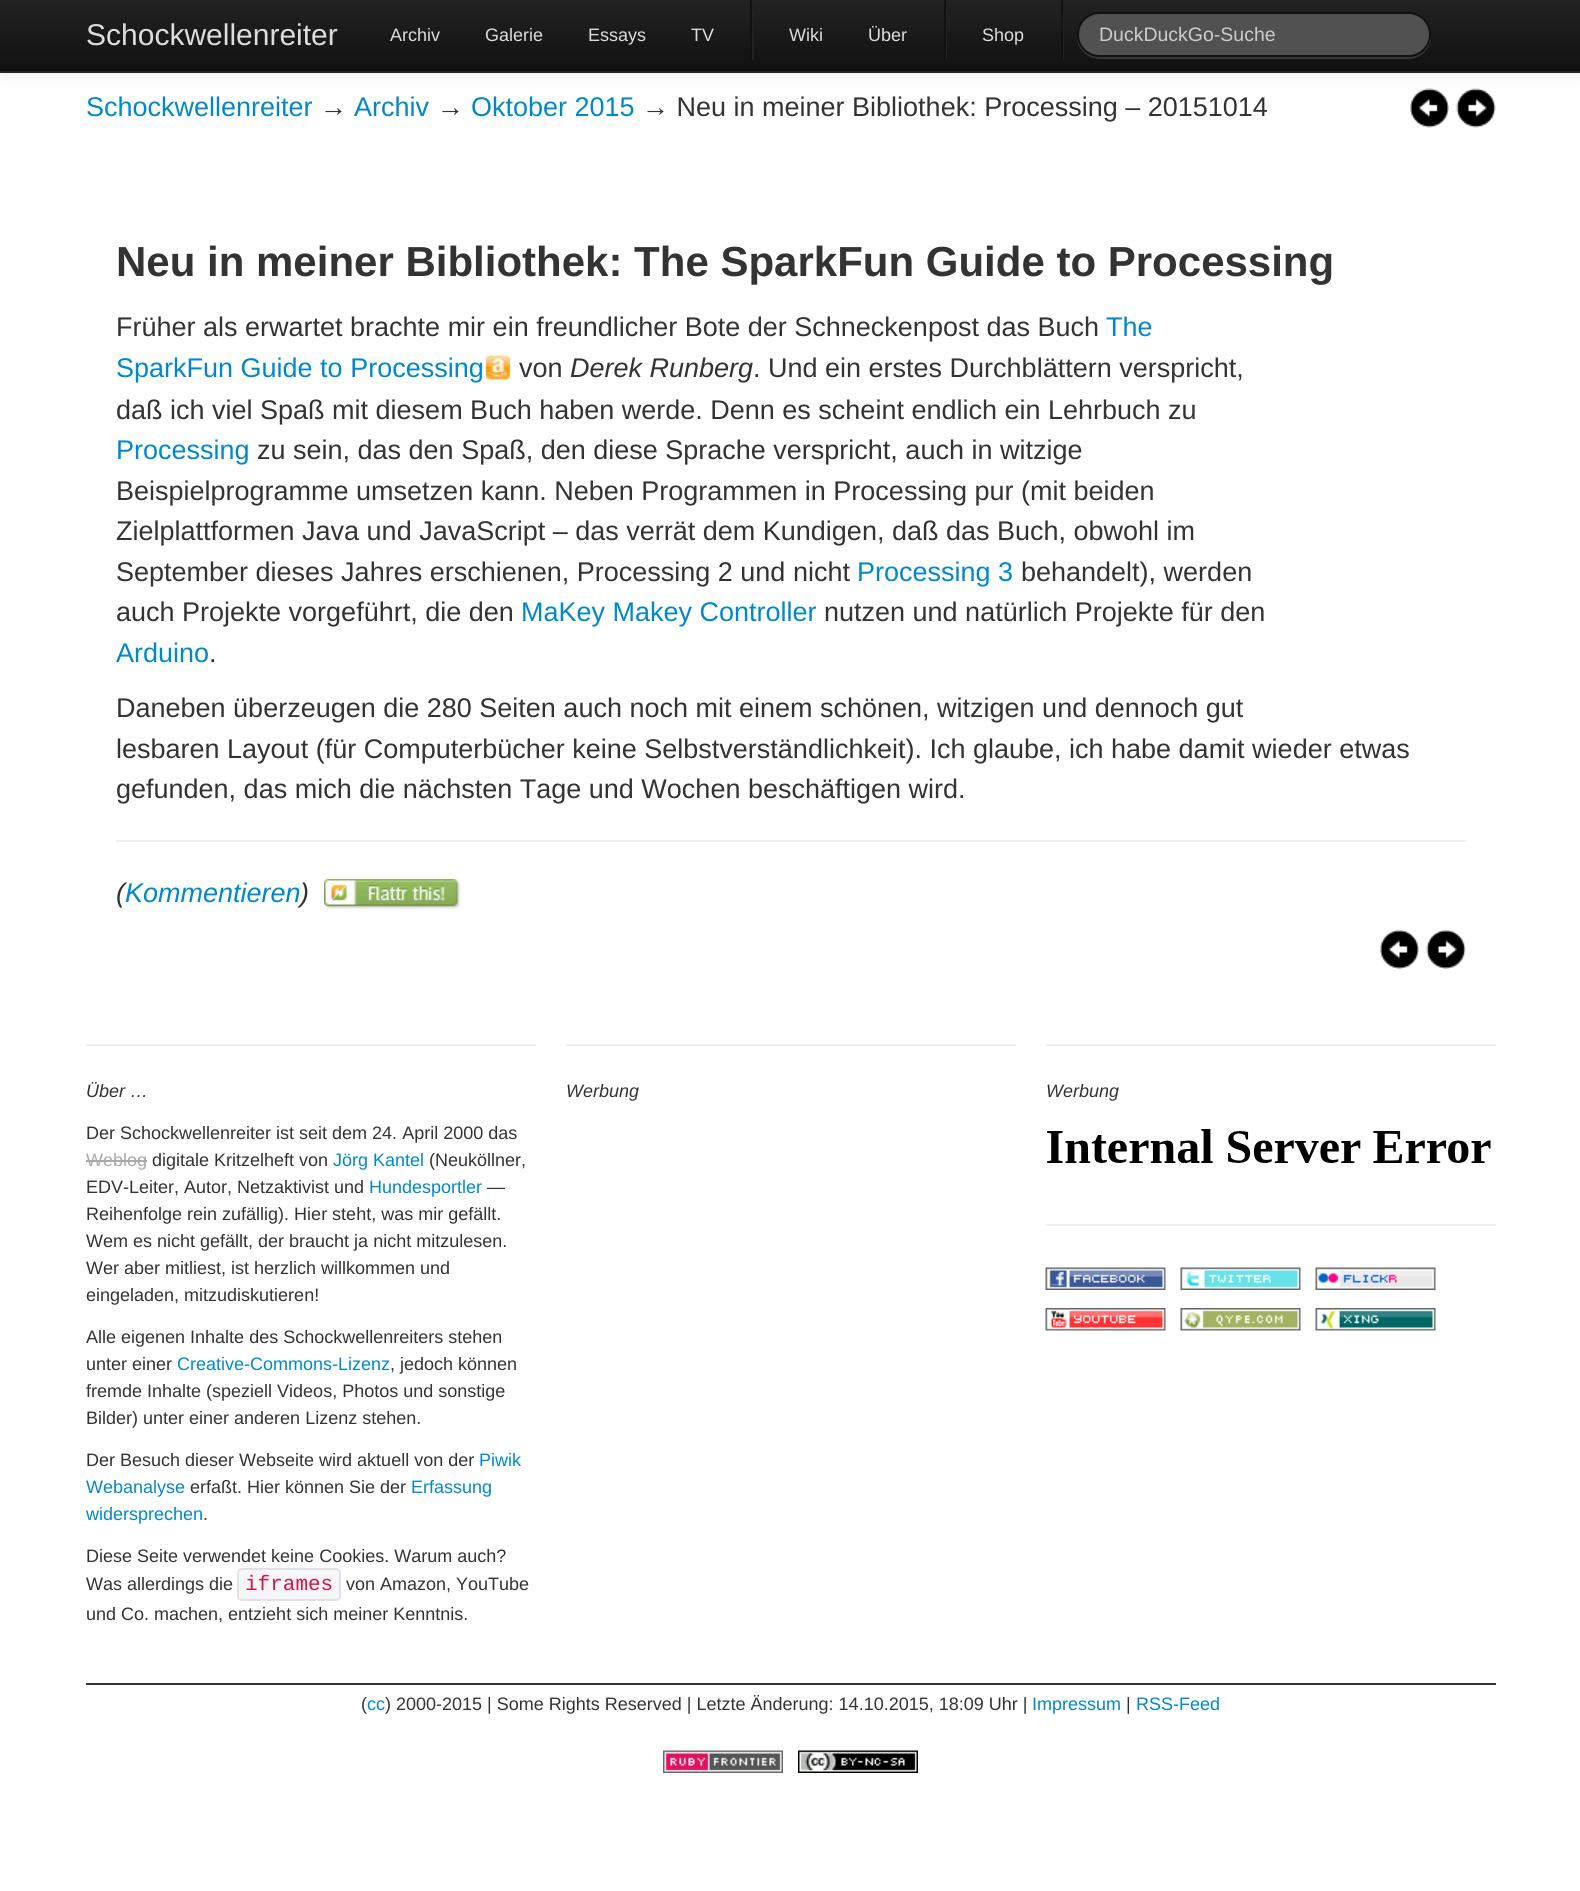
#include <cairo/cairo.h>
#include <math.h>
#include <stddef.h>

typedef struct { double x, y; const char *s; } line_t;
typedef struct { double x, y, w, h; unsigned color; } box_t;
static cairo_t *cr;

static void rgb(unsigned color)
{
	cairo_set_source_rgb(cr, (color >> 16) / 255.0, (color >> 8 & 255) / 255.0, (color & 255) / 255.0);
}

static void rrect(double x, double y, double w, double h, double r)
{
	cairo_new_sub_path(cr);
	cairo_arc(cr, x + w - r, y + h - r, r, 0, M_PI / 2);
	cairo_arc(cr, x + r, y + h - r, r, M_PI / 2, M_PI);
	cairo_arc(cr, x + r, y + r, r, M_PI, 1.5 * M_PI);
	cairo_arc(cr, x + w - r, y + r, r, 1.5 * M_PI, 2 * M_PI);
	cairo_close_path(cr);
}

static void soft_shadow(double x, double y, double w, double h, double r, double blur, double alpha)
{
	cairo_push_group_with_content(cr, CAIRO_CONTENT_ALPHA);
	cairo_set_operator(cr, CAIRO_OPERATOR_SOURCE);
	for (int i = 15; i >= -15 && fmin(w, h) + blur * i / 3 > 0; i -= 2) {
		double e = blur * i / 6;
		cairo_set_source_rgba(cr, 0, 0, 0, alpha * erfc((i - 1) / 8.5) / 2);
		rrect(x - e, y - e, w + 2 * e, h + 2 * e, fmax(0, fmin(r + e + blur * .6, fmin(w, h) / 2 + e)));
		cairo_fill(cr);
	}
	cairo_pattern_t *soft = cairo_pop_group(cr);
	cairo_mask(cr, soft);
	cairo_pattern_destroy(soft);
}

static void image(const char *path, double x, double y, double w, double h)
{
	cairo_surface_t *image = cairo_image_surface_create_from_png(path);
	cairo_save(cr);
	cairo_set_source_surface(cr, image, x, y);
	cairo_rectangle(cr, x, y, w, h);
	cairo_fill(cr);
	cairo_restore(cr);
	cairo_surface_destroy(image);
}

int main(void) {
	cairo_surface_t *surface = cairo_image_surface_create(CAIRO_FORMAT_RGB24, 1580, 1891);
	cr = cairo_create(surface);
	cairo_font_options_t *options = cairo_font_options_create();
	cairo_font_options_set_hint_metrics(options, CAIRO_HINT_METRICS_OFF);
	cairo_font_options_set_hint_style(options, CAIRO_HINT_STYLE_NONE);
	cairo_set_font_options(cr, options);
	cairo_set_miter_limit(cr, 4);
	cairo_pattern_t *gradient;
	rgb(0xffffff);
	cairo_paint(cr);
	rgb(0x000000);
	soft_shadow(0, 2, 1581, 72, 0, 7.5, 0.1);
	gradient = cairo_pattern_create_linear(791, 0, 791, 71);
	cairo_pattern_add_color_stop_rgba(gradient, 0, 0.133, 0.133, 0.133, 1);
	cairo_pattern_add_color_stop_rgba(gradient, 1, 0.067, 0.067, 0.067, 1);
	cairo_set_source(cr, gradient);
	cairo_pattern_destroy(gradient);
	cairo_rectangle(cr, 0, 0, 1580, 69);
	cairo_fill(cr);
	{
		static const box_t items[] = {
			{0, 69, 1580, 2, 0x0f0f0f},
			{0, 71, 1580, 2, 0x252525},
			{752, 10, 2, 50, 0x222222},
			{750, 0, 2, 60, 0x111111},
			{946, 10, 1, 50, 0x222222},
			{944, 0, 2, 60, 0x111111},
			{1063, 10, 1, 50, 0x222222},
			{1061, 0, 2, 60, 0x111111},
		};
		for (size_t i = 0; i < sizeof items / sizeof *items; i++) {
			rgb(items[i].color);
			cairo_rectangle(cr, items[i].x, items[i].y, items[i].w, items[i].h);
			cairo_fill(cr);
		}
	}
	cairo_set_source_rgba(cr, 1, 1, 1, 0.15);
	cairo_new_path(cr);
	cairo_move_to(cr, 1077, 35);
	cairo_curve_to(cr, 1076, 48, 1087, 59, 1100, 59);
	cairo_line_to(cr, 1408, 59);
	cairo_curve_to(cr, 1421, 59, 1432, 48, 1431, 35);
	cairo_curve_to(cr, 1430, 47, 1421, 57, 1408, 57);
	cairo_line_to(cr, 1100, 57);
	cairo_curve_to(cr, 1087, 57, 1078, 47, 1077, 35);
	cairo_close_path(cr);
	cairo_fill(cr);
	rgb(0x515151);
	rrect(1078, 13, 352, 43, 21.5);
	cairo_fill_preserve(cr);
	rgb(0x111111);
	cairo_stroke(cr);
	image("img/1.png", 1410, 88, 39, 40);
	image("img/2.png", 1456, 88, 40, 40);
	image("img/3.png", 486, 355, 24, 25);
	rgb(0xeeeeee);
	cairo_rectangle(cr, 116, 840, 1350, 2);
	cairo_fill(cr);
	image("img/4.png", 324, 879, 137, 30);
	image("img/5.png", 1380, 930, 39, 39);
	image("img/6.png", 1426, 930, 40, 39);
	cairo_rectangle(cr, 86, 1044, 450, 2);
	cairo_fill(cr);
	rgb(0xaaaaaa);
	cairo_rectangle(cr, 86, 1160, 61, 2);
	cairo_fill(cr);
	rgb(0xf7f7f9);
	rrect(238, 1569, 102, 31, 4);
	cairo_fill_preserve(cr);
	rgb(0xe1e1e8);
	cairo_stroke(cr);
	rgb(0xeeeeee);
	cairo_rectangle(cr, 566, 1044, 450, 2);
	cairo_fill(cr);
	cairo_rectangle(cr, 1046, 1044, 450, 2);
	cairo_fill(cr);
	image("img/7.png", 1047, 1129, 444, 34);
	cairo_rectangle(cr, 1046, 1224, 450, 2);
	cairo_fill(cr);
	image("img/8.png", 1045, 1267, 121, 23);
	image("img/9.png", 1180, 1267, 121, 23);
	image("img/10.png", 1315, 1267, 121, 23);
	image("img/11.png", 1045, 1308, 121, 23);
	image("img/12.png", 1180, 1308, 121, 23);
	image("img/13.png", 1315, 1308, 121, 23);
	rgb(0x333333);
	cairo_rectangle(cr, 86, 1683, 1410, 2);
	cairo_fill(cr);
	image("img/14.png", 663, 1750, 120, 23);
	image("img/15.png", 798, 1750, 120, 23);
	cairo_select_font_face(cr, "Liberation Sans", CAIRO_FONT_SLANT_NORMAL, CAIRO_FONT_WEIGHT_NORMAL);
	cairo_set_font_size(cr, 30);
	rgb(0xdddddd);
	cairo_move_to(cr, 86, 45);
	cairo_show_text(cr, "Schockwellenreiter");
	cairo_set_font_size(cr, 18);
	{
		static const line_t items[] = {
			{390, 41, "Archiv"},
			{485, 41, "Galerie"},
			{588, 41, "Essays"},
			{691, 41, "TV"},
			{789, 41, "Wiki"},
			{868, 41, "Über"},
			{982, 41, "Shop"},
		};
		for (size_t i = 0; i < sizeof items / sizeof *items; i++) {
			cairo_move_to(cr, items[i].x, items[i].y);
			cairo_show_text(cr, items[i].s);
		}
	}
	cairo_set_font_size(cr, 19.5);
	rgb(0xcccccc);
	cairo_move_to(cr, 1099, 41);
	cairo_show_text(cr, "DuckDuckGo-Suche");
	cairo_set_font_size(cr, 27);
	rgb(0x0088cc);
	cairo_move_to(cr, 86, 116);
	cairo_show_text(cr, "Schockwellenreiter");
	rgb(0x333333);
	cairo_move_to(cr, 320, 116);
	cairo_show_text(cr, "→");
	rgb(0x0088cc);
	cairo_move_to(cr, 354, 116);
	cairo_show_text(cr, "Archiv");
	rgb(0x333333);
	cairo_move_to(cr, 437, 116);
	cairo_show_text(cr, "→");
	rgb(0x0088cc);
	cairo_move_to(cr, 471, 116);
	cairo_show_text(cr, "Oktober 2015");
	rgb(0x333333);
	cairo_move_to(cr, 642, 116);
	cairo_show_text(cr, "→ Neu in meiner Bibliothek: Processing – 20151014");
	cairo_select_font_face(cr, "Liberation Sans", CAIRO_FONT_SLANT_NORMAL, CAIRO_FONT_WEIGHT_BOLD);
	cairo_set_font_size(cr, 42);
	cairo_move_to(cr, 116, 276);
	cairo_show_text(cr, "Neu in meiner Bibliothek: The SparkFun Guide to Processing");
	cairo_select_font_face(cr, "Liberation Sans", CAIRO_FONT_SLANT_NORMAL, CAIRO_FONT_WEIGHT_NORMAL);
	cairo_set_font_size(cr, 27);
	cairo_move_to(cr, 116, 336);
	cairo_show_text(cr, "Früher als erwartet brachte mir ein freundlicher Bote der Schneckenpost das Buch");
	rgb(0x0088cc);
	cairo_move_to(cr, 1106, 336);
	cairo_show_text(cr, "The");
	cairo_move_to(cr, 116, 377);
	cairo_show_text(cr, "SparkFun Guide to Processing");
	rgb(0x333333);
	cairo_move_to(cr, 519, 377);
	cairo_show_text(cr, "von");
	cairo_select_font_face(cr, "Liberation Sans", CAIRO_FONT_SLANT_ITALIC, CAIRO_FONT_WEIGHT_NORMAL);
	cairo_move_to(cr, 570, 377);
	cairo_show_text(cr, "Derek Runberg");
	cairo_select_font_face(cr, "Liberation Sans", CAIRO_FONT_SLANT_NORMAL, CAIRO_FONT_WEIGHT_NORMAL);
	cairo_move_to(cr, 753, 377);
	cairo_show_text(cr, ". Und ein erstes Durchblättern verspricht,");
	cairo_move_to(cr, 116, 419);
	cairo_show_text(cr, "daß ich viel Spaß mit diesem Buch haben werde. Denn es scheint endlich ein Lehrbuch zu");
	rgb(0x0088cc);
	cairo_move_to(cr, 116, 459);
	cairo_show_text(cr, "Processing");
	rgb(0x333333);
	{
		static const line_t items[] = {
			{257, 459, "zu sein, das den Spaß, den diese Sprache verspricht, auch in witzige"},
			{116, 500, "Beispielprogramme umsetzen kann. Neben Programmen in Processing pur (mit beiden"},
			{116, 540, "Zielplattformen Java und JavaScript – das verrät dem Kundigen, daß das Buch, obwohl im"},
			{116, 581, "September dieses Jahres erschienen, Processing 2 und nicht"},
		};
		for (size_t i = 0; i < sizeof items / sizeof *items; i++) {
			cairo_move_to(cr, items[i].x, items[i].y);
			cairo_show_text(cr, items[i].s);
		}
	}
	rgb(0x0088cc);
	cairo_move_to(cr, 857, 581);
	cairo_show_text(cr, "Processing 3");
	rgb(0x333333);
	cairo_move_to(cr, 1021, 581);
	cairo_show_text(cr, "behandelt), werden");
	cairo_move_to(cr, 116, 621);
	cairo_show_text(cr, "auch Projekte vorgeführt, die den");
	rgb(0x0088cc);
	cairo_move_to(cr, 521, 621);
	cairo_show_text(cr, "MaKey Makey Controller");
	rgb(0x333333);
	cairo_move_to(cr, 824, 621);
	cairo_show_text(cr, "nutzen und natürlich Projekte für den");
	rgb(0x0088cc);
	cairo_move_to(cr, 116, 662);
	cairo_show_text(cr, "Arduino");
	rgb(0x333333);
	{
		static const line_t items[] = {
			{209, 662, "."},
			{116, 717, "Daneben überzeugen die 280 Seiten auch noch mit einem schönen, witzigen und dennoch gut"},
			{116, 758, "lesbaren Layout (für Computerbücher keine Selbstverständlichkeit). Ich glaube, ich habe damit wieder etwas"},
			{116, 798, "gefunden, das mich die nächsten Tage und Wochen beschäftigen wird."},
		};
		for (size_t i = 0; i < sizeof items / sizeof *items; i++) {
			cairo_move_to(cr, items[i].x, items[i].y);
			cairo_show_text(cr, items[i].s);
		}
	}
	cairo_select_font_face(cr, "Liberation Sans", CAIRO_FONT_SLANT_ITALIC, CAIRO_FONT_WEIGHT_NORMAL);
	cairo_move_to(cr, 116, 902);
	cairo_show_text(cr, "(");
	rgb(0x0088cc);
	cairo_move_to(cr, 125, 902);
	cairo_show_text(cr, "Kommentieren");
	rgb(0x333333);
	cairo_move_to(cr, 300, 902);
	cairo_show_text(cr, ")");
	cairo_set_font_size(cr, 18);
	cairo_move_to(cr, 86, 1097);
	cairo_show_text(cr, "Über …");
	cairo_select_font_face(cr, "Liberation Sans", CAIRO_FONT_SLANT_NORMAL, CAIRO_FONT_WEIGHT_NORMAL);
	cairo_move_to(cr, 86, 1139);
	cairo_show_text(cr, "Der Schockwellenreiter ist seit dem 24. April 2000 das");
	rgb(0xaaaaaa);
	cairo_move_to(cr, 86, 1166);
	cairo_show_text(cr, "Weblog");
	rgb(0x333333);
	cairo_move_to(cr, 152, 1166);
	cairo_show_text(cr, "digitale Kritzelheft von");
	rgb(0x0088cc);
	cairo_move_to(cr, 333, 1166);
	cairo_show_text(cr, "Jörg Kantel");
	rgb(0x333333);
	cairo_move_to(cr, 429, 1166);
	cairo_show_text(cr, "(Neuköllner,");
	cairo_move_to(cr, 86, 1193);
	cairo_show_text(cr, "EDV-Leiter, Autor, Netzaktivist und");
	rgb(0x0088cc);
	cairo_move_to(cr, 369, 1193);
	cairo_show_text(cr, "Hundesportler");
	rgb(0x333333);
	{
		static const line_t items[] = {
			{487, 1193, "—"},
			{86, 1220, "Reihenfolge rein zufällig). Hier steht, was mir gefällt."},
			{86, 1247, "Wem es nicht gefällt, der braucht ja nicht mitzulesen."},
			{86, 1274, "Wer aber mitliest, ist herzlich willkommen und"},
			{86, 1301, "eingeladen, mitzudiskutieren!"},
			{86, 1343, "Alle eigenen Inhalte des Schockwellenreiters stehen"},
			{86, 1370, "unter einer"},
		};
		for (size_t i = 0; i < sizeof items / sizeof *items; i++) {
			cairo_move_to(cr, items[i].x, items[i].y);
			cairo_show_text(cr, items[i].s);
		}
	}
	rgb(0x0088cc);
	cairo_move_to(cr, 177, 1370);
	cairo_show_text(cr, "Creative-Commons-Lizenz");
	rgb(0x333333);
	{
		static const line_t items[] = {
			{390, 1370, ", jedoch können"},
			{86, 1397, "fremde Inhalte (speziell Videos, Photos und sonstige"},
			{86, 1424, "Bilder) unter einer anderen Lizenz stehen."},
			{86, 1466, "Der Besuch dieser Webseite wird aktuell von der"},
		};
		for (size_t i = 0; i < sizeof items / sizeof *items; i++) {
			cairo_move_to(cr, items[i].x, items[i].y);
			cairo_show_text(cr, items[i].s);
		}
	}
	rgb(0x0088cc);
	cairo_move_to(cr, 479, 1466);
	cairo_show_text(cr, "Piwik");
	cairo_move_to(cr, 86, 1493);
	cairo_show_text(cr, "Webanalyse");
	rgb(0x333333);
	cairo_move_to(cr, 190, 1493);
	cairo_show_text(cr, "erfaßt. Hier können Sie der");
	rgb(0x0088cc);
	cairo_move_to(cr, 411, 1493);
	cairo_show_text(cr, "Erfassung");
	cairo_move_to(cr, 86, 1520);
	cairo_show_text(cr, "widersprechen");
	rgb(0x333333);
	{
		static const line_t items[] = {
			{203, 1520, "."},
			{86, 1562, "Diese Seite verwendet keine Cookies. Warum auch?"},
			{86, 1590, "Was allerdings die"},
		};
		for (size_t i = 0; i < sizeof items / sizeof *items; i++) {
			cairo_move_to(cr, items[i].x, items[i].y);
			cairo_show_text(cr, items[i].s);
		}
	}
	cairo_select_font_face(cr, "Liberation Mono", CAIRO_FONT_SLANT_NORMAL, CAIRO_FONT_WEIGHT_NORMAL);
	cairo_set_font_size(cr, 21);
	rgb(0xdd1144);
	cairo_move_to(cr, 245, 1590);
	cairo_show_text(cr, "iframes");
	cairo_select_font_face(cr, "Liberation Sans", CAIRO_FONT_SLANT_NORMAL, CAIRO_FONT_WEIGHT_NORMAL);
	cairo_set_font_size(cr, 18);
	rgb(0x333333);
	cairo_move_to(cr, 346, 1590);
	cairo_show_text(cr, "von Amazon, YouTube");
	cairo_move_to(cr, 86, 1620);
	cairo_show_text(cr, "und Co. machen, entzieht sich meiner Kenntnis.");
	cairo_select_font_face(cr, "Liberation Sans", CAIRO_FONT_SLANT_ITALIC, CAIRO_FONT_WEIGHT_NORMAL);
	cairo_move_to(cr, 566, 1097);
	cairo_show_text(cr, "Werbung");
	cairo_move_to(cr, 1046, 1097);
	cairo_show_text(cr, "Werbung");
	cairo_select_font_face(cr, "Liberation Sans", CAIRO_FONT_SLANT_NORMAL, CAIRO_FONT_WEIGHT_NORMAL);
	cairo_move_to(cr, 361, 1710);
	cairo_show_text(cr, "(");
	rgb(0x0088cc);
	cairo_move_to(cr, 367, 1710);
	cairo_show_text(cr, "cc");
	rgb(0x333333);
	cairo_move_to(cr, 385, 1710);
	cairo_show_text(cr, ") 2000-2015 | Some Rights Reserved | Letzte Änderung: 14.10.2015, 18:09 Uhr |");
	rgb(0x0088cc);
	cairo_move_to(cr, 1032, 1710);
	cairo_show_text(cr, "Impressum");
	rgb(0x333333);
	cairo_move_to(cr, 1126, 1710);
	cairo_show_text(cr, "|");
	rgb(0x0088cc);
	cairo_move_to(cr, 1136, 1710);
	cairo_show_text(cr, "RSS-Feed");
	cairo_surface_write_to_png(surface, "page.png");
	cairo_font_options_destroy(options);
	cairo_destroy(cr);
	cairo_surface_destroy(surface);
	return 0;
}
